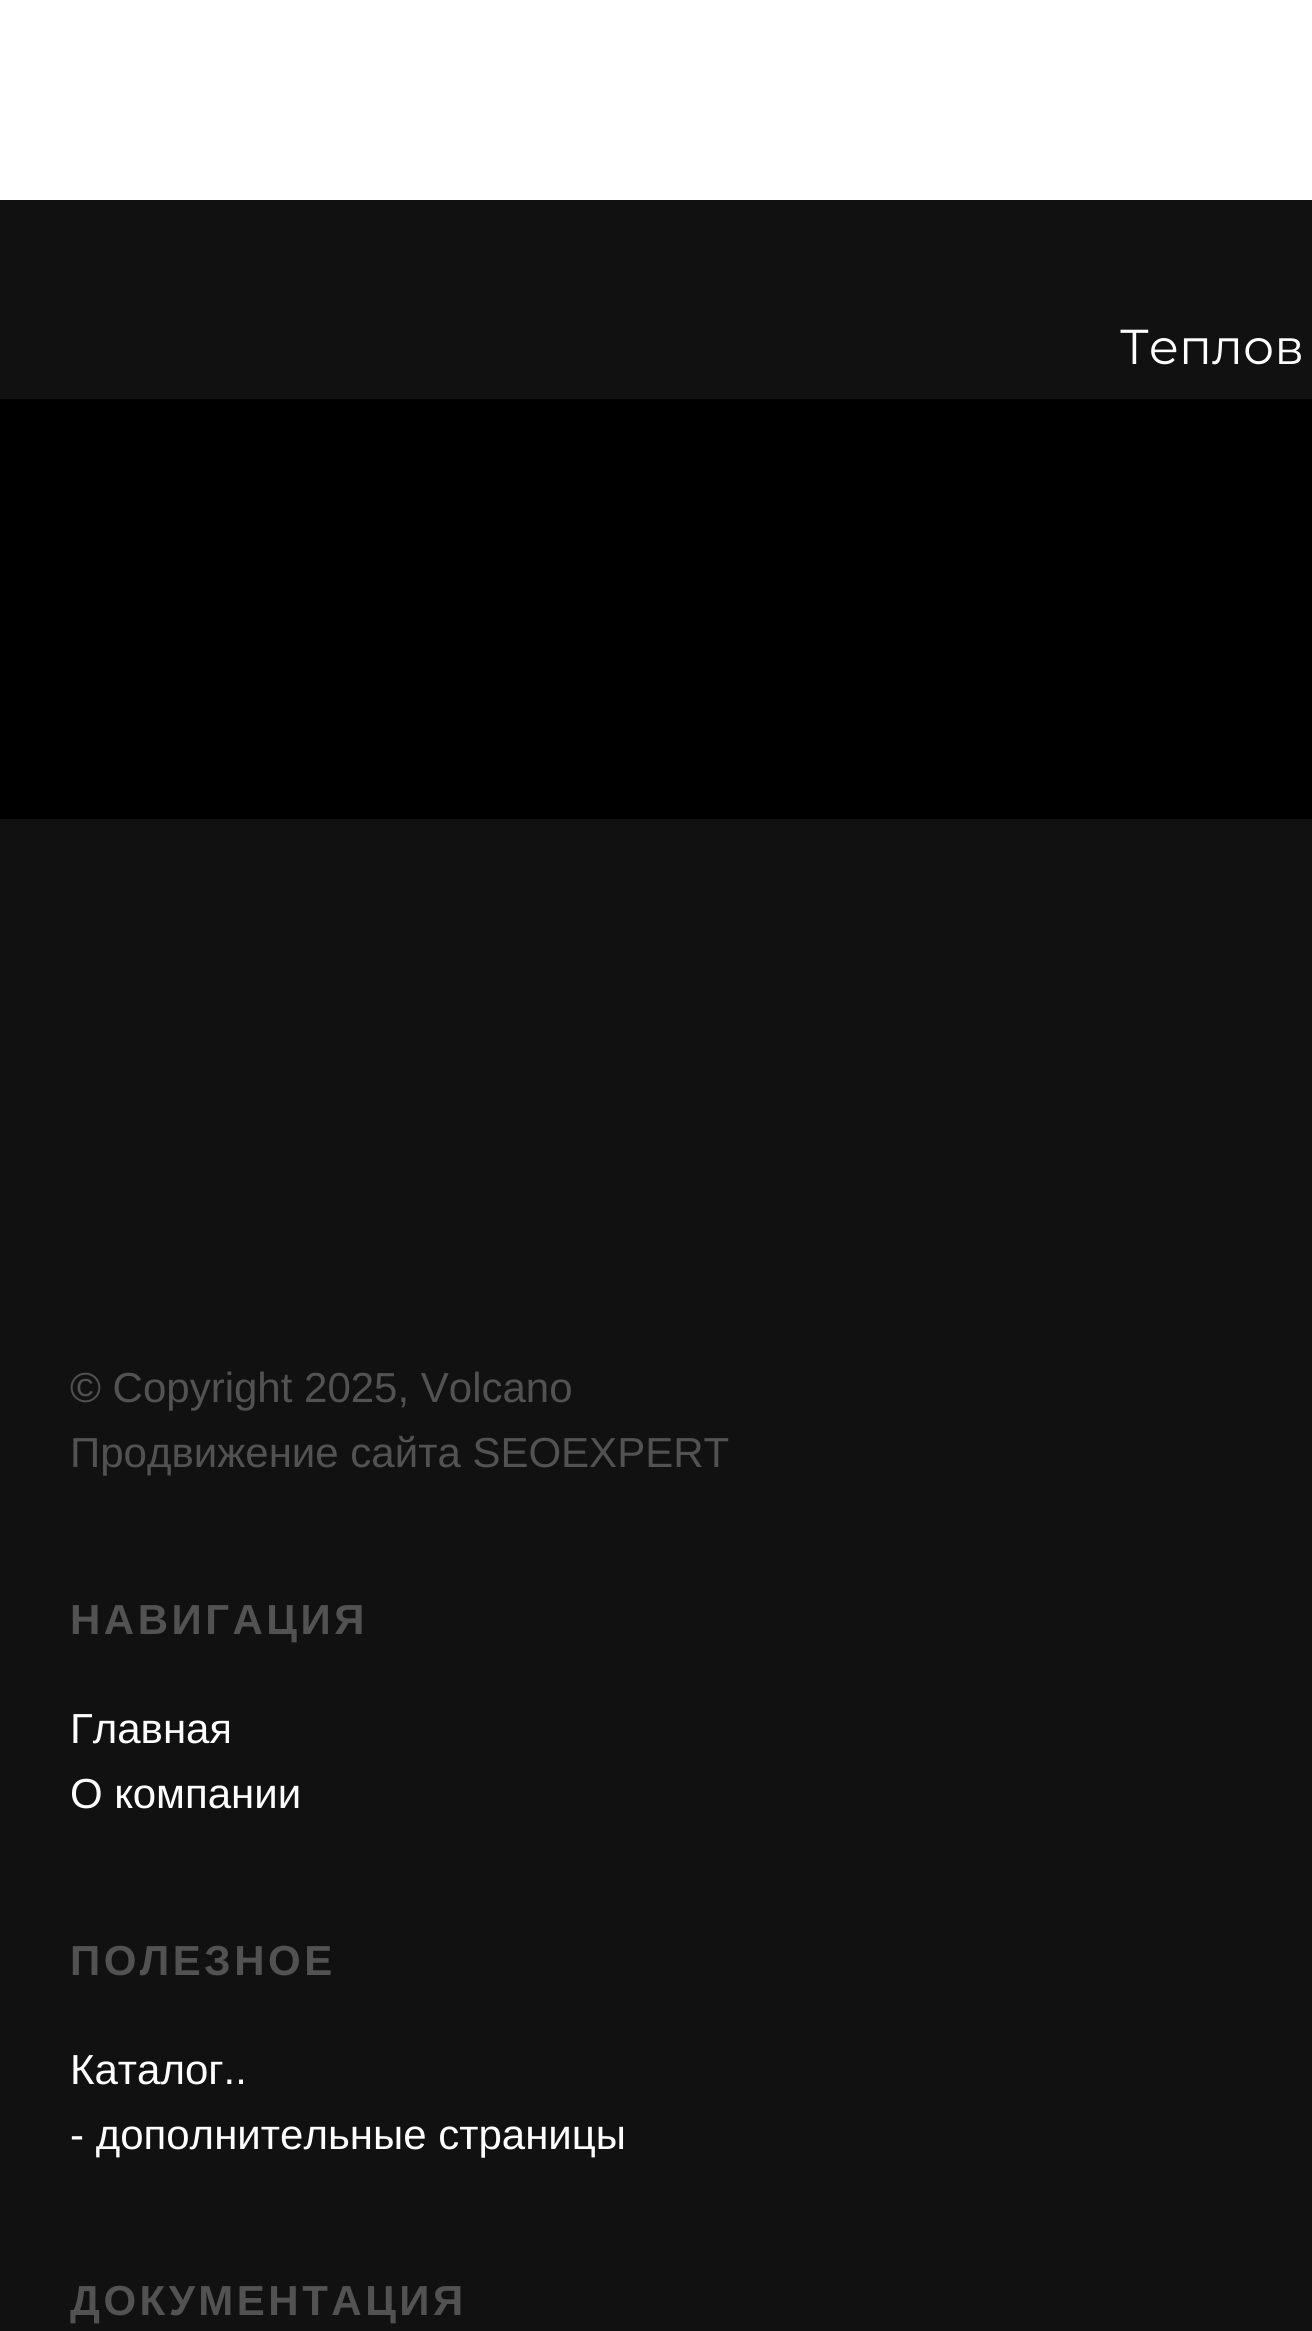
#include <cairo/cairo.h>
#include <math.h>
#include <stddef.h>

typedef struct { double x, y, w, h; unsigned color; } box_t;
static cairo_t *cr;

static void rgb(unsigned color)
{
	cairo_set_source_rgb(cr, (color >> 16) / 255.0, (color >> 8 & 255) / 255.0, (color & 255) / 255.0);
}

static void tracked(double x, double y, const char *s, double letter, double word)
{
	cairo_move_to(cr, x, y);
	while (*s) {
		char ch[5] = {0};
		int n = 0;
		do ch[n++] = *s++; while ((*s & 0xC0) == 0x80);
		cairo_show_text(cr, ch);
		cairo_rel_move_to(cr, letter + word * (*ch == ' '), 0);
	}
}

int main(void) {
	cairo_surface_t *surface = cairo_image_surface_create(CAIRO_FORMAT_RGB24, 1312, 2331);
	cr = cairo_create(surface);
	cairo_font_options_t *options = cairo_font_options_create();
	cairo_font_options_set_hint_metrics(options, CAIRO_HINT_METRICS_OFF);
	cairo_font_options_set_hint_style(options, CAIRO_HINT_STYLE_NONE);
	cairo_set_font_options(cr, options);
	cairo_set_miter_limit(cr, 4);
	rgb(0xffffff);
	cairo_paint(cr);
	{
		static const box_t items[] = {
			{0, 200, 1312, 199, 0x111111},
			{0, 399, 1312, 420, 0x000000},
			{0, 819, 1312, 1512, 0x111111},
		};
		for (size_t i = 0; i < sizeof items / sizeof *items; i++) {
			rgb(items[i].color);
			cairo_rectangle(cr, items[i].x, items[i].y, items[i].w, items[i].h);
			cairo_fill(cr);
		}
	}
	cairo_select_font_face(cr, "Montserrat", CAIRO_FONT_SLANT_NORMAL, CAIRO_FONT_WEIGHT_NORMAL);
	cairo_set_font_size(cr, 49);
	rgb(0xffffff);
	cairo_move_to(cr, 1120, 364);
	cairo_show_text(cr, "Теплов");
	cairo_select_font_face(cr, "Liberation Sans", CAIRO_FONT_SLANT_NORMAL, CAIRO_FONT_WEIGHT_NORMAL);
	cairo_set_font_size(cr, 42);
	rgb(0x525252);
	cairo_move_to(cr, 70, 1402);
	cairo_show_text(cr, "© Copyright 2025, Volcano");
	cairo_move_to(cr, 70, 1467);
	cairo_show_text(cr, "Продвижение сайта SEOEXPERT");
	cairo_select_font_face(cr, "Liberation Sans", CAIRO_FONT_SLANT_NORMAL, CAIRO_FONT_WEIGHT_BOLD);
	tracked(70, 1634, "НАВИГАЦИЯ", 3.5, 0);
	cairo_select_font_face(cr, "Liberation Sans", CAIRO_FONT_SLANT_NORMAL, CAIRO_FONT_WEIGHT_NORMAL);
	rgb(0xffffff);
	cairo_move_to(cr, 70, 1743);
	cairo_show_text(cr, "Главная");
	cairo_move_to(cr, 70, 1808);
	cairo_show_text(cr, "О компании");
	cairo_select_font_face(cr, "Liberation Sans", CAIRO_FONT_SLANT_NORMAL, CAIRO_FONT_WEIGHT_BOLD);
	rgb(0x525252);
	tracked(70, 1975, "ПОЛЕЗНОЕ", 3.5, 0);
	cairo_select_font_face(cr, "Liberation Sans", CAIRO_FONT_SLANT_NORMAL, CAIRO_FONT_WEIGHT_NORMAL);
	rgb(0xffffff);
	cairo_move_to(cr, 70, 2084);
	cairo_show_text(cr, "Каталог..");
	cairo_move_to(cr, 70, 2149);
	cairo_show_text(cr, "- дополнительные страницы");
	cairo_select_font_face(cr, "Liberation Sans", CAIRO_FONT_SLANT_NORMAL, CAIRO_FONT_WEIGHT_BOLD);
	rgb(0x525252);
	tracked(70, 2315, "ДОКУМЕНТАЦИЯ", 3.5, 0);
	cairo_surface_write_to_png(surface, "page.png");
	cairo_font_options_destroy(options);
	cairo_destroy(cr);
	cairo_surface_destroy(surface);
	return 0;
}
